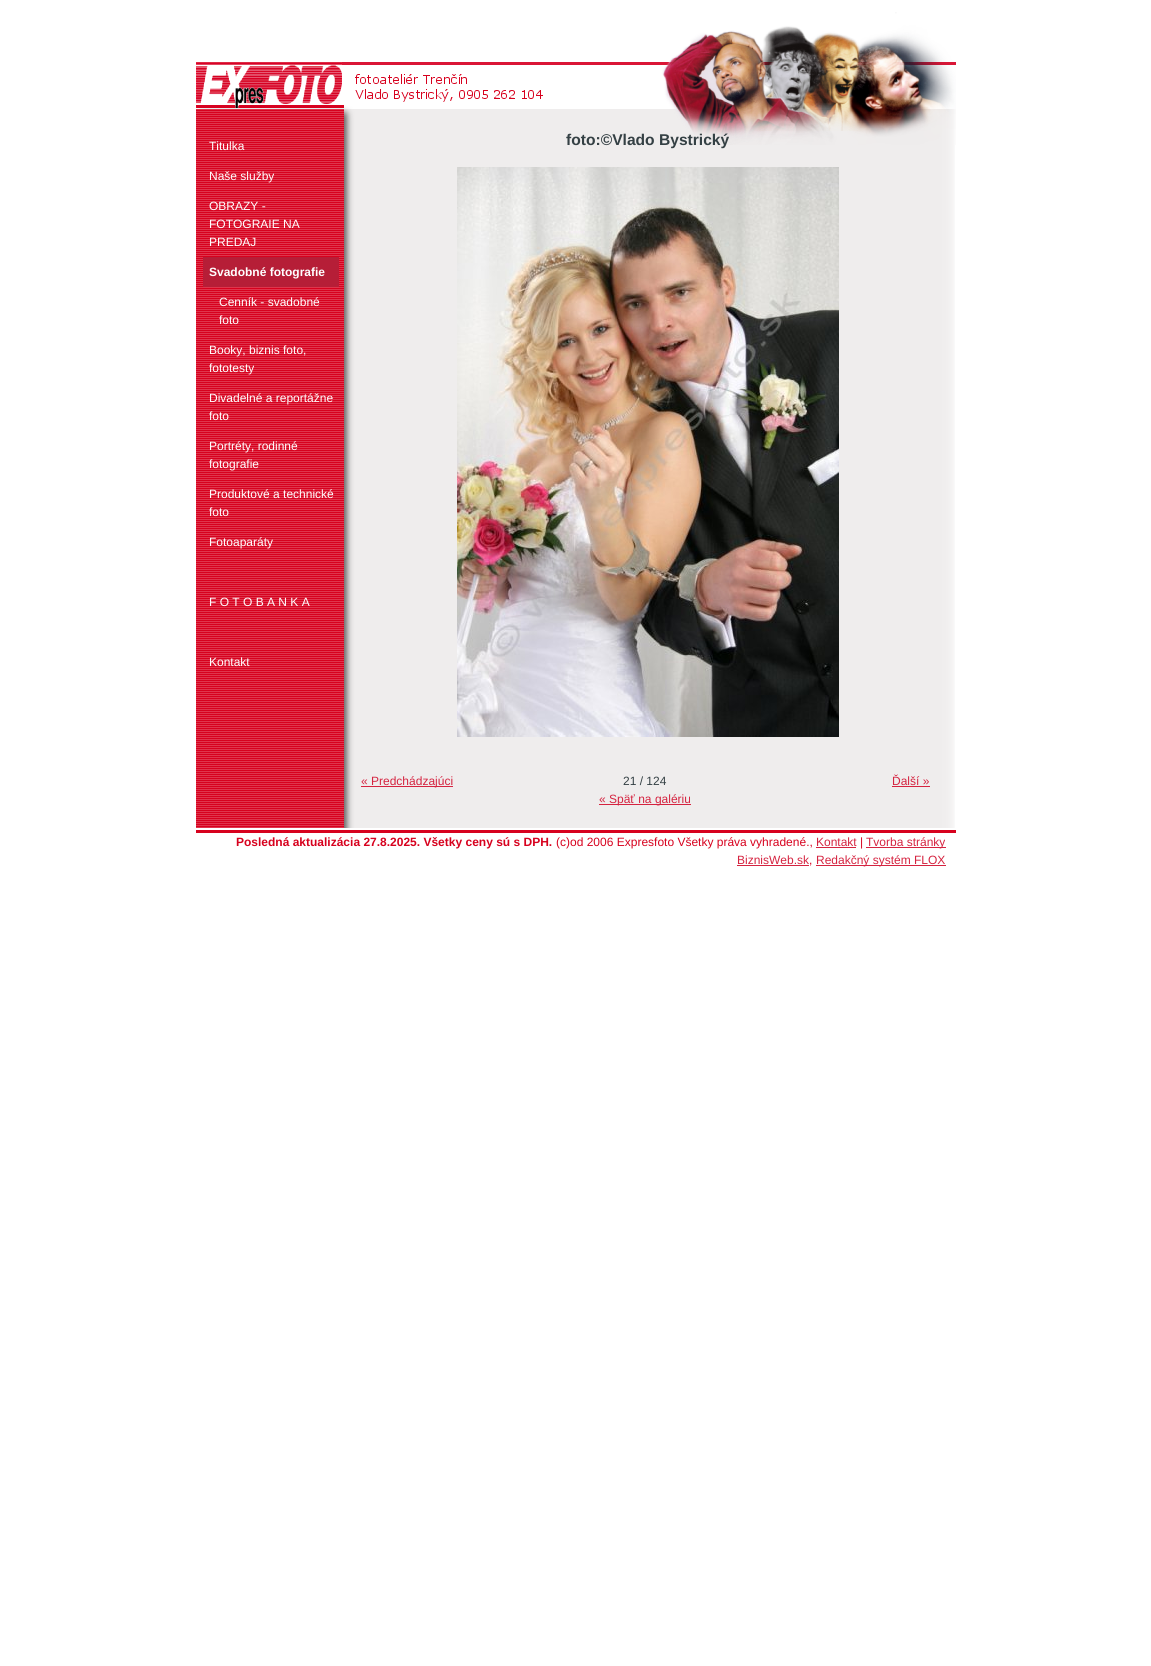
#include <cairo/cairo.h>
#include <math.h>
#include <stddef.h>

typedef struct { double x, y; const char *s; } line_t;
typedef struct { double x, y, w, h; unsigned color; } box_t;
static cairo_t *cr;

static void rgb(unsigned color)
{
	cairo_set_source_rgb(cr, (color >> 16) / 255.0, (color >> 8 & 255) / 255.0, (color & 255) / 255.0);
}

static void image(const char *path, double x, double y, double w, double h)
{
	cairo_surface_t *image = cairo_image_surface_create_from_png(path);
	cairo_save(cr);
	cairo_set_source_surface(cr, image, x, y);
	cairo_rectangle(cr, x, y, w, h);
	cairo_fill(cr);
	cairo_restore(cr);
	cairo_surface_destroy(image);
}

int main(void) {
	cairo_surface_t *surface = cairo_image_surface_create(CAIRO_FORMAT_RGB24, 1151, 1666);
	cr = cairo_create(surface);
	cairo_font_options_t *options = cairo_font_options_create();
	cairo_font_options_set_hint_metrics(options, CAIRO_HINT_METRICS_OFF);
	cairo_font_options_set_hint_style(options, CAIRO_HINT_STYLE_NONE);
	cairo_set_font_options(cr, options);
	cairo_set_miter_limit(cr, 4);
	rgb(0xffffff);
	cairo_paint(cr);
	image("img/1.png", 196, 145, 759, 683);
	image("img/2.png", 196, 1, 760, 144);
	rgb(0xb61e37);
	cairo_rectangle(cr, 203, 257, 136, 30);
	cairo_fill(cr);
	image("img/3.png", 457, 167, 382, 570);
	{
		static const box_t items[] = {
			{361, 786, 92, 1, 0xd52340},
			{892, 786, 38, 1, 0xd52340},
			{599, 804, 92, 1, 0xd52340},
			{196, 830, 760, 3, 0xd7011e},
			{816, 847, 40, 1, 0xd52340},
			{866, 847, 80, 1, 0xd52340},
			{737, 865, 72, 1, 0xd52340},
			{816, 865, 130, 1, 0xd52340},
		};
		for (size_t i = 0; i < sizeof items / sizeof *items; i++) {
			rgb(items[i].color);
			cairo_rectangle(cr, items[i].x, items[i].y, items[i].w, items[i].h);
			cairo_fill(cr);
		}
	}
	cairo_select_font_face(cr, "Liberation Sans", CAIRO_FONT_SLANT_NORMAL, CAIRO_FONT_WEIGHT_NORMAL);
	cairo_set_font_size(cr, 12);
	rgb(0xffffff);
	{
		static const line_t items[] = {
			{209, 150, "Titulka"},
			{209, 180, "Naše služby"},
			{209, 210, "OBRAZY -"},
			{209, 228, "FOTOGRAIE NA"},
			{209, 246, "PREDAJ"},
		};
		for (size_t i = 0; i < sizeof items / sizeof *items; i++) {
			cairo_move_to(cr, items[i].x, items[i].y);
			cairo_show_text(cr, items[i].s);
		}
	}
	cairo_select_font_face(cr, "Liberation Sans", CAIRO_FONT_SLANT_NORMAL, CAIRO_FONT_WEIGHT_BOLD);
	cairo_move_to(cr, 209, 276);
	cairo_show_text(cr, "Svadobné fotografie");
	cairo_select_font_face(cr, "Liberation Sans", CAIRO_FONT_SLANT_NORMAL, CAIRO_FONT_WEIGHT_NORMAL);
	{
		static const line_t items[] = {
			{219, 306, "Cenník - svadobné"},
			{219, 324, "foto"},
			{209, 354, "Booky, biznis foto,"},
			{209, 372, "fototesty"},
			{209, 402, "Divadelné a reportážne"},
			{209, 420, "foto"},
			{209, 450, "Portréty, rodinné"},
			{209, 468, "fotografie"},
			{209, 498, "Produktové a technické"},
			{209, 516, "foto"},
			{209, 546, "Fotoaparáty"},
			{209, 606, "F O T O B A N K A"},
			{209, 666, "Kontakt"},
		};
		for (size_t i = 0; i < sizeof items / sizeof *items; i++) {
			cairo_move_to(cr, items[i].x, items[i].y);
			cairo_show_text(cr, items[i].s);
		}
	}
	cairo_select_font_face(cr, "Liberation Sans", CAIRO_FONT_SLANT_NORMAL, CAIRO_FONT_WEIGHT_BOLD);
	cairo_set_font_size(cr, 15.6);
	rgb(0x344044);
	cairo_move_to(cr, 566, 145);
	cairo_show_text(cr, "foto:©Vlado Bystrický");
	cairo_select_font_face(cr, "Liberation Sans", CAIRO_FONT_SLANT_NORMAL, CAIRO_FONT_WEIGHT_NORMAL);
	cairo_set_font_size(cr, 12);
	rgb(0xd52340);
	cairo_move_to(cr, 361, 785);
	cairo_show_text(cr, "« Predchádzajúci");
	rgb(0x344044);
	cairo_move_to(cr, 623, 785);
	cairo_show_text(cr, "21 / 124");
	rgb(0xd52340);
	cairo_move_to(cr, 892, 785);
	cairo_show_text(cr, "Ďalší »");
	cairo_move_to(cr, 599, 803);
	cairo_show_text(cr, "« Späť na galériu");
	cairo_select_font_face(cr, "Liberation Sans", CAIRO_FONT_SLANT_NORMAL, CAIRO_FONT_WEIGHT_BOLD);
	rgb(0xd7011e);
	cairo_move_to(cr, 236, 846);
	cairo_show_text(cr, "Posledná aktualizácia 27.8.2025. Všetky ceny sú s DPH.");
	cairo_select_font_face(cr, "Liberation Sans", CAIRO_FONT_SLANT_NORMAL, CAIRO_FONT_WEIGHT_NORMAL);
	cairo_move_to(cr, 556, 846);
	cairo_show_text(cr, "(c)od 2006 Expresfoto Všetky práva vyhradené.,");
	rgb(0xd52340);
	cairo_move_to(cr, 816, 846);
	cairo_show_text(cr, "Kontakt");
	rgb(0xd7011e);
	cairo_move_to(cr, 860, 846);
	cairo_show_text(cr, "|");
	rgb(0xd52340);
	cairo_move_to(cr, 866, 846);
	cairo_show_text(cr, "Tvorba stránky");
	cairo_move_to(cr, 737, 864);
	cairo_show_text(cr, "BiznisWeb.sk");
	rgb(0xd7011e);
	cairo_move_to(cr, 809, 864);
	cairo_show_text(cr, ",");
	rgb(0xd52340);
	cairo_move_to(cr, 816, 864);
	cairo_show_text(cr, "Redakčný systém FLOX");
	cairo_surface_write_to_png(surface, "page.png");
	cairo_font_options_destroy(options);
	cairo_destroy(cr);
	cairo_surface_destroy(surface);
	return 0;
}
